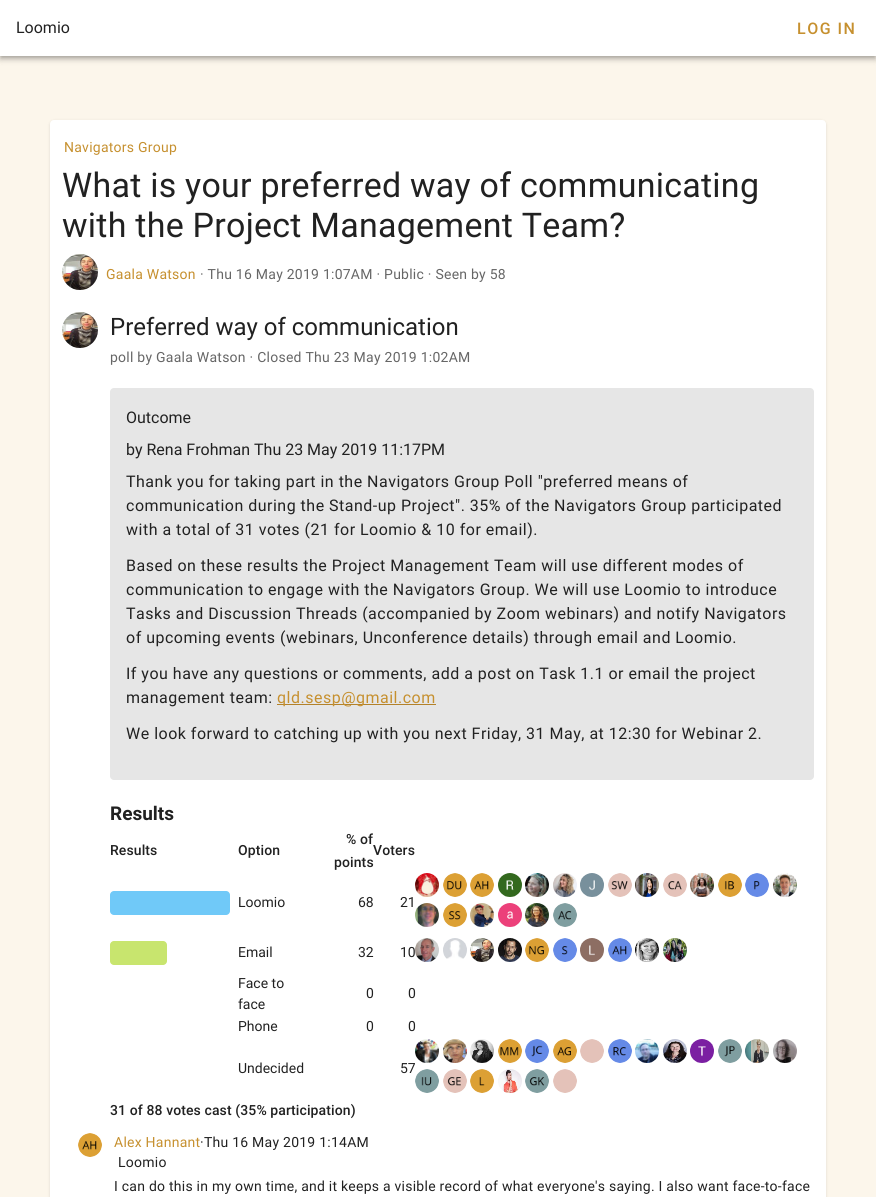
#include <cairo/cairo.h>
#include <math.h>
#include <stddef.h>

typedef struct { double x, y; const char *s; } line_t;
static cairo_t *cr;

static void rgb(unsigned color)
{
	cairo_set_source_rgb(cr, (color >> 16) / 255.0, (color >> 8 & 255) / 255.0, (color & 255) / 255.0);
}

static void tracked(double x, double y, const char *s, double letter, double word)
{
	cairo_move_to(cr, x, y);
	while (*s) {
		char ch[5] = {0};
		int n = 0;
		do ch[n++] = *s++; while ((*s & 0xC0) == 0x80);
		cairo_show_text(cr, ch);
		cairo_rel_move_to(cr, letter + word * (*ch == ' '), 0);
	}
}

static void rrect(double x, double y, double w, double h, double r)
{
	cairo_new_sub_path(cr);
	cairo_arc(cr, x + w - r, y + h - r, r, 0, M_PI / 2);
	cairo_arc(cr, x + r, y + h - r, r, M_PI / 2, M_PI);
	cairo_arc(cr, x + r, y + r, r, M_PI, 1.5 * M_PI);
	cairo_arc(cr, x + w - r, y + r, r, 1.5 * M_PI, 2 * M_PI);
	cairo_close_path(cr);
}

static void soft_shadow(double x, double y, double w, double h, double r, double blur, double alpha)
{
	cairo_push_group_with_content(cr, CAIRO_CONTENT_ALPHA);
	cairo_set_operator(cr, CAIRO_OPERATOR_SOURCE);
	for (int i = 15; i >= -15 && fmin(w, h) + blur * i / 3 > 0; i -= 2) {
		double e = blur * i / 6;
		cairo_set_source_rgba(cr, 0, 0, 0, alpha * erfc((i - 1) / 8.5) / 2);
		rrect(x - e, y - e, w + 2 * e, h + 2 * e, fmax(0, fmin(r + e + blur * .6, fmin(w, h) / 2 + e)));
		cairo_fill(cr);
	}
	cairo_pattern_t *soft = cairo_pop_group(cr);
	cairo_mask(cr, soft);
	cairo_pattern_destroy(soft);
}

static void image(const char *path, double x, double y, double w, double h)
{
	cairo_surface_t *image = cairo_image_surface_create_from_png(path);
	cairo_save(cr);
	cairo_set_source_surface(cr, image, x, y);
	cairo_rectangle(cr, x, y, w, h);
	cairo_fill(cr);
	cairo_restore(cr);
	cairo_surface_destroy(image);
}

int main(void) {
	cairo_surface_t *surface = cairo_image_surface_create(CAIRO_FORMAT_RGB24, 876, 1197);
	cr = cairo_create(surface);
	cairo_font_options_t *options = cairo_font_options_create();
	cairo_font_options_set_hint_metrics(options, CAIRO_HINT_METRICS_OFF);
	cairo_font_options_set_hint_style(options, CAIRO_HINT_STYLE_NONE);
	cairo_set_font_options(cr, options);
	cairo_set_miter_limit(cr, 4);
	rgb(0xfcf6eb);
	cairo_paint(cr);
	rgb(0x000000);
	soft_shadow(0, 1, 876, 56, 0, 5, 0.12);
	soft_shadow(0, 4, 876, 56, 0, 2.5, 0.14);
	soft_shadow(1, 3, 874, 54, 0, 2, 0.2);
	rgb(0xffffff);
	cairo_rectangle(cr, 0, 0, 876, 56);
	cairo_fill(cr);
	rrect(797, 20, 58, 17, 3);
	cairo_stroke(cr);
	rgb(0x000000);
	soft_shadow(50, 121, 776, 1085, 4, 1.5, 0.12);
	rgb(0xffffff);
	rrect(50, 120, 776, 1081, 4);
	cairo_fill(cr);
	image("img/1.png", 62, 254, 36, 36);
	image("img/1.png", 62, 312, 36, 36);
	rgb(0xc6902f);
	cairo_rectangle(cr, 277, 704, 159, 1);
	cairo_fill(cr);
	cairo_set_source_rgba(cr, 0, 0, 0, 0.1);
	rrect(110, 388, 704, 392, 4);
	cairo_fill(cr);
	rgb(0x70c9f8);
	rrect(110, 891, 120, 24, 4);
	cairo_fill(cr);
	image("img/2.png", 415, 873, 24, 24);
	image("img/3.png", 443, 873, 24, 24);
	image("img/4.png", 470, 873, 24, 24);
	image("img/5.png", 498, 873, 24, 24);
	image("img/6.png", 525, 873, 24, 24);
	image("img/7.png", 553, 873, 24, 24);
	image("img/8.png", 580, 873, 24, 24);
	image("img/9.png", 608, 873, 24, 24);
	image("img/10.png", 635, 873, 24, 24);
	image("img/11.png", 663, 873, 24, 24);
	image("img/12.png", 690, 873, 24, 24);
	image("img/13.png", 718, 873, 24, 24);
	image("img/14.png", 745, 873, 24, 24);
	image("img/15.png", 773, 873, 24, 24);
	image("img/16.png", 415, 903, 24, 24);
	image("img/17.png", 443, 903, 24, 24);
	image("img/18.png", 470, 903, 24, 24);
	image("img/19.png", 498, 903, 24, 24);
	image("img/20.png", 525, 903, 24, 24);
	image("img/21.png", 553, 903, 24, 24);
	rgb(0xc8e56e);
	rrect(110, 941, 57, 24, 4);
	cairo_fill(cr);
	image("img/22.png", 415, 938, 24, 24);
	image("img/23.png", 443, 938, 24, 21);
	image("img/24.png", 470, 938, 24, 24);
	image("img/25.png", 498, 938, 24, 24);
	image("img/26.png", 525, 938, 24, 24);
	image("img/27.png", 553, 938, 24, 24);
	image("img/28.png", 580, 938, 24, 24);
	image("img/29.png", 608, 938, 24, 24);
	image("img/30.png", 635, 938, 24, 24);
	image("img/31.png", 663, 938, 24, 24);
	image("img/32.png", 415, 1039, 24, 24);
	image("img/33.png", 443, 1039, 24, 24);
	image("img/34.png", 470, 1039, 24, 24);
	image("img/35.png", 498, 1039, 24, 24);
	image("img/36.png", 525, 1039, 24, 24);
	image("img/37.png", 553, 1039, 24, 24);
	image("img/38.png", 580, 1039, 24, 24);
	image("img/39.png", 608, 1039, 24, 24);
	image("img/40.png", 635, 1039, 24, 24);
	image("img/41.png", 663, 1039, 24, 24);
	image("img/42.png", 690, 1039, 24, 24);
	image("img/43.png", 718, 1039, 24, 24);
	image("img/44.png", 745, 1039, 24, 24);
	image("img/45.png", 773, 1039, 24, 24);
	image("img/46.png", 415, 1069, 24, 24);
	image("img/47.png", 443, 1069, 24, 24);
	image("img/48.png", 470, 1069, 24, 24);
	image("img/49.png", 498, 1069, 24, 24);
	image("img/50.png", 525, 1069, 24, 24);
	image("img/51.png", 553, 1069, 24, 24);
	image("img/4.png", 78, 1133, 24, 24);
	cairo_select_font_face(cr, "Roboto", CAIRO_FONT_SLANT_NORMAL, CAIRO_FONT_WEIGHT_NORMAL);
	cairo_set_font_size(cr, 16);
	rgb(0x212121);
	cairo_move_to(cr, 16, 33);
	cairo_show_text(cr, "Loomio");
	cairo_select_font_face(cr, "Roboto Medium", CAIRO_FONT_SLANT_NORMAL, CAIRO_FONT_WEIGHT_NORMAL);
	rgb(0xc6902f);
	tracked(797, 34, "LOG IN", 1.5, 0);
	cairo_select_font_face(cr, "Roboto", CAIRO_FONT_SLANT_NORMAL, CAIRO_FONT_WEIGHT_NORMAL);
	cairo_set_font_size(cr, 14);
	tracked(64, 152, "Navigators Group", 0.25, 0);
	cairo_set_font_size(cr, 34);
	rgb(0x212121);
	tracked(62, 197, "What is your preferred way of communicating", 0.25, 0);
	tracked(62, 237, "with the Project Management Team?", 0.25, 0);
	cairo_set_font_size(cr, 14);
	rgb(0xc6902f);
	tracked(106, 279, "Gaala Watson", 0.25, 0);
	rgb(0x666666);
	tracked(200, 279, "· Thu 16 May 2019 1:07AM · Public · Seen by 58", 0.25, 0);
	cairo_set_font_size(cr, 24);
	rgb(0x212121);
	cairo_move_to(cr, 110, 335);
	cairo_show_text(cr, "Preferred way of communication");
	cairo_set_font_size(cr, 14);
	rgb(0x666666);
	tracked(110, 362, "poll by Gaala Watson · Closed Thu 23 May 2019 1:02AM", 0.25, 0);
	cairo_set_font_size(cr, 16);
	rgb(0x212121);
	cairo_move_to(cr, 126, 423);
	cairo_show_text(cr, "Outcome");
	cairo_move_to(cr, 126, 455);
	cairo_show_text(cr, "by Rena Frohman Thu 23 May 2019 11:17PM");
	{
		static const line_t items[] = {
			{126, 487, "Thank you for taking part in the Navigators Group Poll \"preferred means of"},
			{126, 511, "communication during the Stand-up Project\". 35% of the Navigators Group participated"},
			{126, 535, "with a total of 31 votes (21 for Loomio & 10 for email)."},
			{126, 571, "Based on these results the Project Management Team will use different modes of"},
			{126, 595, "communication to engage with the Navigators Group. We will use Loomio to introduce"},
			{126, 619, "Tasks and Discussion Threads (accompanied by Zoom webinars) and notify Navigators"},
			{126, 643, "of upcoming events (webinars, Unconference details) through email and Loomio."},
			{126, 679, "If you have any questions or comments, add a post on Task 1.1 or email the project"},
			{126, 703, "management team:"},
		};
		for (size_t i = 0; i < sizeof items / sizeof *items; i++) {
			tracked(items[i].x, items[i].y, items[i].s, 0.5, 0);
		}
	}
	rgb(0xc6902f);
	tracked(277, 703, "qld.sesp@gmail.com", 0.5, 0);
	rgb(0x212121);
	tracked(126, 739, "We look forward to catching up with you next Friday, 31 May, at 12:30 for Webinar 2.", 0.5, 0);
	cairo_select_font_face(cr, "Roboto", CAIRO_FONT_SLANT_NORMAL, CAIRO_FONT_WEIGHT_BOLD);
	cairo_set_font_size(cr, 19);
	cairo_move_to(cr, 110, 820);
	cairo_show_text(cr, "Results");
	cairo_select_font_face(cr, "Roboto Medium", CAIRO_FONT_SLANT_NORMAL, CAIRO_FONT_WEIGHT_NORMAL);
	cairo_set_font_size(cr, 14);
	{
		static const line_t items[] = {
			{110, 855, "Results"},
			{238, 855, "Option"},
			{346, 844, "% of"},
			{334, 867, "points"},
			{373, 855, "Voters"},
		};
		for (size_t i = 0; i < sizeof items / sizeof *items; i++) {
			tracked(items[i].x, items[i].y, items[i].s, 0.1, 0);
		}
	}
	cairo_select_font_face(cr, "Roboto", CAIRO_FONT_SLANT_NORMAL, CAIRO_FONT_WEIGHT_NORMAL);
	{
		static const line_t items[] = {
			{238, 907, "Loomio"},
			{358, 907, "68"},
			{400, 907, "21"},
			{238, 957, "Email"},
			{358, 957, "32"},
			{400, 957, "10"},
			{238, 988, "Face to"},
			{238, 1009, "face"},
			{366, 998, "0"},
			{408, 998, "0"},
			{238, 1031, "Phone"},
			{366, 1031, "0"},
			{408, 1031, "0"},
			{238, 1073, "Undecided"},
			{400, 1073, "57"},
		};
		for (size_t i = 0; i < sizeof items / sizeof *items; i++) {
			cairo_move_to(cr, items[i].x, items[i].y);
			cairo_show_text(cr, items[i].s);
		}
	}
	cairo_select_font_face(cr, "Roboto Medium", CAIRO_FONT_SLANT_NORMAL, CAIRO_FONT_WEIGHT_NORMAL);
	tracked(110, 1115, "31 of 88 votes cast (35% participation)", 0.1, 0);
	cairo_select_font_face(cr, "Roboto", CAIRO_FONT_SLANT_NORMAL, CAIRO_FONT_WEIGHT_NORMAL);
	rgb(0xc6902f);
	tracked(114, 1147, "Alex Hannant", 0.25, 0);
	rgb(0x212121);
	{
		static const line_t items[] = {
			{200, 1147, "·Thu 16 May 2019 1:14AM"},
			{118, 1167, "Loomio"},
			{114, 1191, "I can do this in my own time, and it keeps a visible record of what everyone's saying. I also want face-to-face"},
		};
		for (size_t i = 0; i < sizeof items / sizeof *items; i++) {
			tracked(items[i].x, items[i].y, items[i].s, 0.25, 0);
		}
	}
	cairo_surface_write_to_png(surface, "page.png");
	cairo_font_options_destroy(options);
	cairo_destroy(cr);
	cairo_surface_destroy(surface);
	return 0;
}
